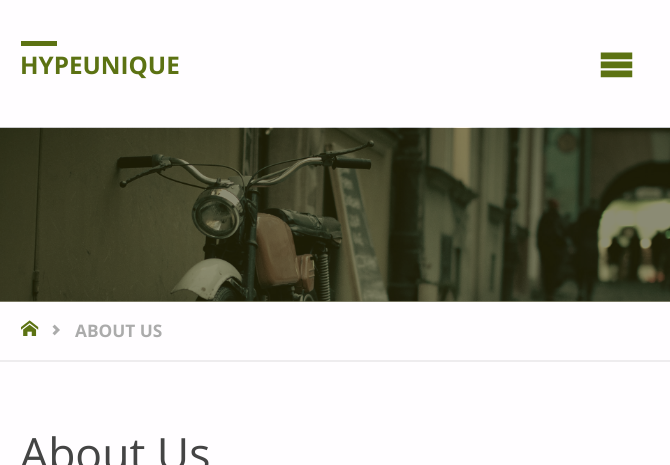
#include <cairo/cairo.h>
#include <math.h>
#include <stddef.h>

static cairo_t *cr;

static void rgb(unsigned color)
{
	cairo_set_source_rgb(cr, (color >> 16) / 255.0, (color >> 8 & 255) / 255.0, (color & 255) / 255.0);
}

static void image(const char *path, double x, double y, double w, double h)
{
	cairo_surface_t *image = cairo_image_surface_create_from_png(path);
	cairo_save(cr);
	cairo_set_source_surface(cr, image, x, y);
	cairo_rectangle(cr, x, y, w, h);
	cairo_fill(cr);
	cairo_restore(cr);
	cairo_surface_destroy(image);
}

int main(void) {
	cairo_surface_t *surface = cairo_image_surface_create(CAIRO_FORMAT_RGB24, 670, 465);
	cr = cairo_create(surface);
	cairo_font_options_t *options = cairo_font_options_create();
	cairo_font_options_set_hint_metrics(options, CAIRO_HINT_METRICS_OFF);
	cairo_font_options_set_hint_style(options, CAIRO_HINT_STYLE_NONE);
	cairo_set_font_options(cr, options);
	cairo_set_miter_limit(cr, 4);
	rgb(0xfffdff);
	cairo_paint(cr);
	rgb(0x8b8a74);
	cairo_rectangle(cr, 0, 301, 670, 1);
	cairo_fill(cr);
	rgb(0x5c7213);
	cairo_rectangle(cr, 21, 41, 36, 5);
	cairo_fill(cr);
	image("img/1.png", 600, 52, 33, 26);
	image("img/2.png", 0, 127, 670, 175);
	rgb(0xeeecee);
	cairo_rectangle(cr, 0, 360, 670, 2);
	cairo_fill(cr);
	image("img/3.png", 21, 320, 18, 16);
	image("img/4.png", 52, 324, 8, 12);
	cairo_select_font_face(cr, "Open Sans", CAIRO_FONT_SLANT_NORMAL, CAIRO_FONT_WEIGHT_BOLD);
	cairo_set_font_size(cr, 24.25);
	rgb(0x5c7213);
	cairo_move_to(cr, 20, 74);
	cairo_show_text(cr, "HYPEUNIQUE");
	cairo_set_font_size(cr, 17.25);
	rgb(0xababab);
	cairo_move_to(cr, 75, 337);
	cairo_show_text(cr, "ABOUT US");
	cairo_select_font_face(cr, "Open Sans", CAIRO_FONT_SLANT_NORMAL, CAIRO_FONT_WEIGHT_NORMAL);
	cairo_set_font_size(cr, 44.5);
	rgb(0x444444);
	cairo_move_to(cr, 20, 470);
	cairo_show_text(cr, "About Us");
	cairo_surface_write_to_png(surface, "page.png");
	cairo_font_options_destroy(options);
	cairo_destroy(cr);
	cairo_surface_destroy(surface);
	return 0;
}
